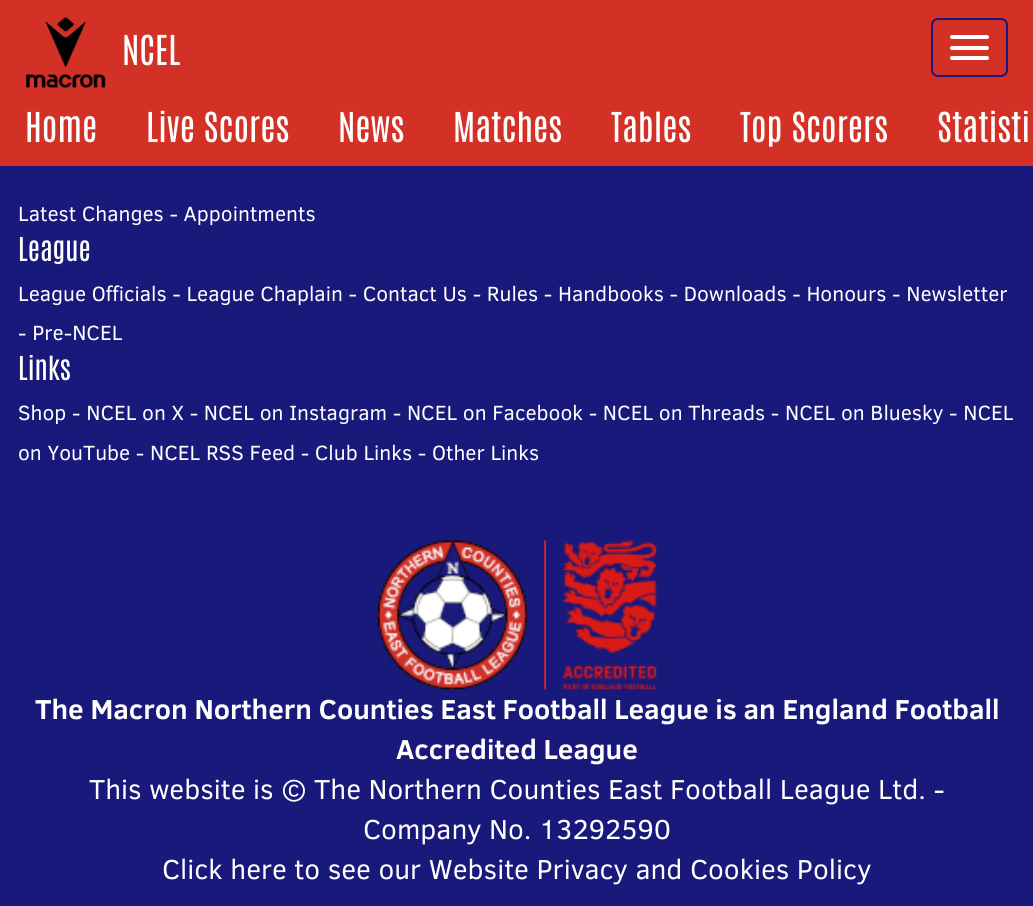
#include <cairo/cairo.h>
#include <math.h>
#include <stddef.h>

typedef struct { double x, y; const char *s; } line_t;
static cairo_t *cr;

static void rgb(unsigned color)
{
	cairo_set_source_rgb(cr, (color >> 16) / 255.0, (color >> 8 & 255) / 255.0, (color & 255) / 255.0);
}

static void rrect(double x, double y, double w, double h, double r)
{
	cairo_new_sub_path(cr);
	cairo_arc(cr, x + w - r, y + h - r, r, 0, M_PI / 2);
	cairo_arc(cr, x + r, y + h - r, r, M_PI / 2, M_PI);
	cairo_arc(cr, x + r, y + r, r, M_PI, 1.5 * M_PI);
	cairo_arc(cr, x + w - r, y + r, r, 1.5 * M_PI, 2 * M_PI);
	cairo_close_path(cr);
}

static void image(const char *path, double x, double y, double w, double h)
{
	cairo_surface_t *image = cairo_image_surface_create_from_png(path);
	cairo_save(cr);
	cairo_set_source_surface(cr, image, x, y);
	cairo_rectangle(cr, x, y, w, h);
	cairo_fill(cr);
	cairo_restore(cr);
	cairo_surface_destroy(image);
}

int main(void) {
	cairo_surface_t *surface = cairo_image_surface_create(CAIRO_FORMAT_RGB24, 1033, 906);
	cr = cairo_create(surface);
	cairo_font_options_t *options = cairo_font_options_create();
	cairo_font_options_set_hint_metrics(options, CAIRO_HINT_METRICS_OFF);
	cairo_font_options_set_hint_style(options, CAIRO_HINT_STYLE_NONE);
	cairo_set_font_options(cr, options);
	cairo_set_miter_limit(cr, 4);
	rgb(0x18197a);
	cairo_paint(cr);
	rgb(0xd43126);
	cairo_rectangle(cr, 0, 0, 1033, 166);
	cairo_fill(cr);
	image("img/1.png", 26, 17, 80, 71);
	rrect(932, 19, 75, 57, 6);
	rgb(0x18197a);
	cairo_stroke(cr);
	rgb(0xffffff);
	rrect(950, 35, 39, 4, 2);
	cairo_fill(cr);
	rrect(950, 46, 39, 4, 2);
	cairo_fill(cr);
	rrect(950, 56, 39, 4, 2);
	cairo_fill(cr);
	image("img/2.png", 378, 540, 149, 150);
	image("img/3.png", 544, 540, 2, 150);
	image("img/4.png", 563, 540, 94, 150);
	cairo_select_font_face(cr, "Antonio", CAIRO_FONT_SLANT_NORMAL, CAIRO_FONT_WEIGHT_NORMAL);
	cairo_set_font_size(cr, 35);
	{
		static const line_t items[] = {
			{122, 65, "NCEL"},
			{25, 142, "Home"},
			{146, 142, "Live Scores"},
			{338, 142, "News"},
			{453, 142, "Matches"},
			{611, 142, "Tables"},
			{740, 142, "Top Scorers"},
			{937, 142, "Statisti"},
		};
		for (size_t i = 0; i < sizeof items / sizeof *items; i++) {
			cairo_move_to(cr, items[i].x, items[i].y);
			cairo_show_text(cr, items[i].s);
		}
	}
	cairo_select_font_face(cr, "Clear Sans", CAIRO_FONT_SLANT_NORMAL, CAIRO_FONT_WEIGHT_NORMAL);
	cairo_set_font_size(cr, 21);
	cairo_move_to(cr, 18, 221);
	cairo_show_text(cr, "Latest Changes - Appointments");
	cairo_select_font_face(cr, "Antonio", CAIRO_FONT_SLANT_NORMAL, CAIRO_FONT_WEIGHT_NORMAL);
	cairo_set_font_size(cr, 28);
	cairo_move_to(cr, 18, 261);
	cairo_show_text(cr, "League");
	cairo_select_font_face(cr, "Clear Sans", CAIRO_FONT_SLANT_NORMAL, CAIRO_FONT_WEIGHT_NORMAL);
	cairo_set_font_size(cr, 21);
	cairo_move_to(cr, 18, 301);
	cairo_show_text(cr, "League Officials - League Chaplain - Contact Us - Rules - Handbooks - Downloads - Honours - Newsletter");
	cairo_move_to(cr, 18, 340);
	cairo_show_text(cr, "- Pre-NCEL");
	cairo_select_font_face(cr, "Antonio", CAIRO_FONT_SLANT_NORMAL, CAIRO_FONT_WEIGHT_NORMAL);
	cairo_set_font_size(cr, 28);
	cairo_move_to(cr, 18, 380);
	cairo_show_text(cr, "Links");
	cairo_select_font_face(cr, "Clear Sans", CAIRO_FONT_SLANT_NORMAL, CAIRO_FONT_WEIGHT_NORMAL);
	cairo_set_font_size(cr, 21);
	cairo_move_to(cr, 18, 420);
	cairo_show_text(cr, "Shop - NCEL on X - NCEL on Instagram - NCEL on Facebook - NCEL on Threads - NCEL on Bluesky - NCEL");
	cairo_move_to(cr, 18, 460);
	cairo_show_text(cr, "on YouTube - NCEL RSS Feed - Club Links - Other Links");
	cairo_select_font_face(cr, "Clear Sans", CAIRO_FONT_SLANT_NORMAL, CAIRO_FONT_WEIGHT_BOLD);
	cairo_set_font_size(cr, 28);
	cairo_move_to(cr, 35, 719);
	cairo_show_text(cr, "The Macron Northern Counties East Football League is an England Football");
	cairo_move_to(cr, 396, 759);
	cairo_show_text(cr, "Accredited League");
	cairo_select_font_face(cr, "Clear Sans", CAIRO_FONT_SLANT_NORMAL, CAIRO_FONT_WEIGHT_NORMAL);
	{
		static const line_t items[] = {
			{89, 799, "This website is © The Northern Counties East Football League Ltd. -"},
			{363, 839, "Company No. 13292590"},
			{162, 879, "Click here to see our Website Privacy and Cookies Policy"},
		};
		for (size_t i = 0; i < sizeof items / sizeof *items; i++) {
			cairo_move_to(cr, items[i].x, items[i].y);
			cairo_show_text(cr, items[i].s);
		}
	}
	cairo_surface_write_to_png(surface, "page.png");
	cairo_font_options_destroy(options);
	cairo_destroy(cr);
	cairo_surface_destroy(surface);
	return 0;
}
